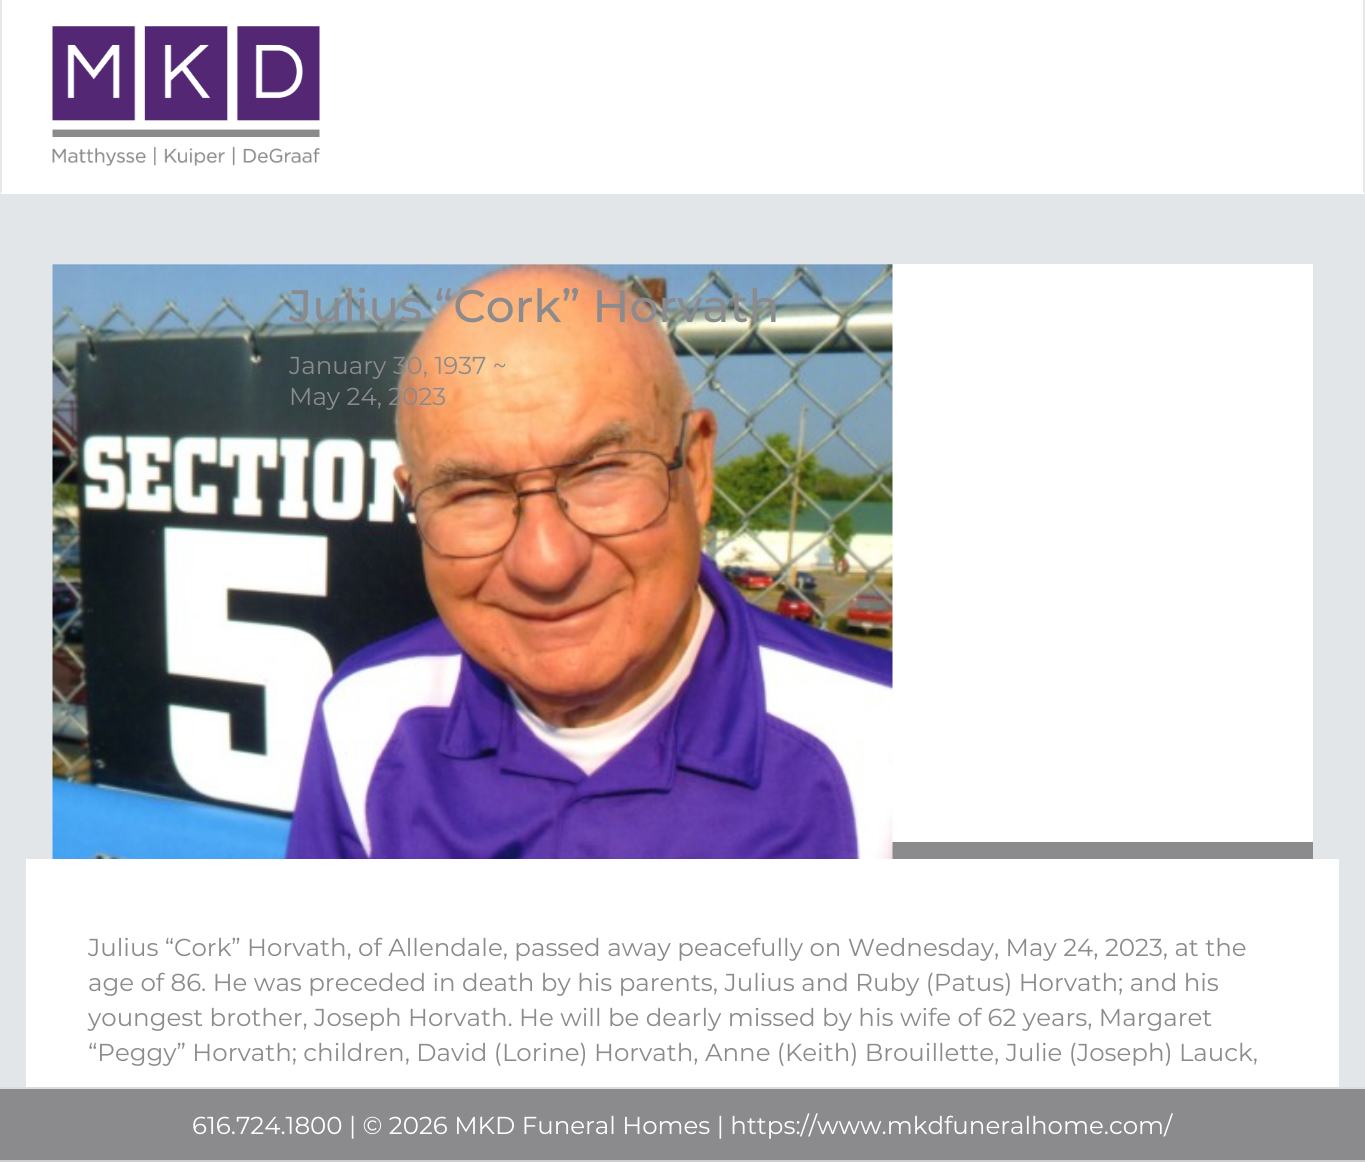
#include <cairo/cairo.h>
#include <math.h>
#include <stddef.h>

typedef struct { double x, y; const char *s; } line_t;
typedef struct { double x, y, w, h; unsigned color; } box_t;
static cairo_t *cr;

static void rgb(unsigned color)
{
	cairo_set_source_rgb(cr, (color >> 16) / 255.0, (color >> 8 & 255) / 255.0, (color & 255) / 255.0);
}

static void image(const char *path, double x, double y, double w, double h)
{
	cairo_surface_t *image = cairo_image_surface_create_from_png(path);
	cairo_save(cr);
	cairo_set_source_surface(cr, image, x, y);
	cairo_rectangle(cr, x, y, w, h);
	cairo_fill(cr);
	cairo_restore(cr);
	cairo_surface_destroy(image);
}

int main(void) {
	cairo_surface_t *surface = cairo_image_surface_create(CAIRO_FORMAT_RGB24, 1365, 1162);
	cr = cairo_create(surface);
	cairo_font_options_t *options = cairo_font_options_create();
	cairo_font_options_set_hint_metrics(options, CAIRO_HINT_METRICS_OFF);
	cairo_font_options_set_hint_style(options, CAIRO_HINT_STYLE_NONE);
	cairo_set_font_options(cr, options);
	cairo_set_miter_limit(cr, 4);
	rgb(0xffffff);
	cairo_paint(cr);
	rgb(0xe7e7e7);
	cairo_new_path(cr);
	cairo_move_to(cr, 1365, 0);
	cairo_line_to(cr, 1365, 194);
	cairo_line_to(cr, 1363, 192);
	cairo_line_to(cr, 1363, 0);
	cairo_close_path(cr);
	cairo_fill(cr);
	cairo_new_path(cr);
	cairo_move_to(cr, 0, 194);
	cairo_line_to(cr, 0, 0);
	cairo_line_to(cr, 2, 0);
	cairo_line_to(cr, 2, 192);
	cairo_close_path(cr);
	cairo_fill(cr);
	image("img/1.png", 52, 26, 268, 140);
	{
		static const box_t items[] = {
			{0, 194, 1365, 893, 0xe3e6e8},
			{53, 264, 1260, 578, 0xffffff},
			{892, 842, 421, 17, 0x8b8a8d},
		};
		for (size_t i = 0; i < sizeof items / sizeof *items; i++) {
			rgb(items[i].color);
			cairo_rectangle(cr, items[i].x, items[i].y, items[i].w, items[i].h);
			cairo_fill(cr);
		}
	}
	image("img/2.png", 52, 264, 841, 595);
	{
		static const box_t items[] = {
			{26, 859, 1313, 228, 0xffffff},
			{0, 1089, 1365, 71, 0x8b8a8d},
			{0, 1087, 1365, 2, 0xdddddd},
			{0, 1160, 1365, 2, 0xcccccc},
		};
		for (size_t i = 0; i < sizeof items / sizeof *items; i++) {
			rgb(items[i].color);
			cairo_rectangle(cr, items[i].x, items[i].y, items[i].w, items[i].h);
			cairo_fill(cr);
		}
	}
	cairo_select_font_face(cr, "Montserrat Medium", CAIRO_FONT_SLANT_NORMAL, CAIRO_FONT_WEIGHT_NORMAL);
	cairo_set_font_size(cr, 45.5);
	rgb(0x8b8a8d);
	cairo_move_to(cr, 289, 322);
	cairo_show_text(cr, "Julius “Cork” Horvath");
	cairo_select_font_face(cr, "Montserrat", CAIRO_FONT_SLANT_NORMAL, CAIRO_FONT_WEIGHT_NORMAL);
	cairo_set_font_size(cr, 24.5);
	{
		static const line_t items[] = {
			{289, 374, "January 30, 1937 ~"},
			{289, 405, "May 24, 2023"},
			{88, 956, "Julius “Cork” Horvath, of Allendale, passed away peacefully on Wednesday, May 24, 2023, at the"},
			{88, 991, "age of 86. He was preceded in death by his parents, Julius and Ruby (Patus) Horvath; and his"},
			{88, 1026, "youngest brother, Joseph Horvath. He will be dearly missed by his wife of 62 years, Margaret"},
			{88, 1061, "“Peggy” Horvath; children, David (Lorine) Horvath, Anne (Keith) Brouillette, Julie (Joseph) Lauck,"},
		};
		for (size_t i = 0; i < sizeof items / sizeof *items; i++) {
			cairo_move_to(cr, items[i].x, items[i].y);
			cairo_show_text(cr, items[i].s);
		}
	}
	rgb(0xffffff);
	cairo_move_to(cr, 192, 1134);
	cairo_show_text(cr, "616.724.1800 | © 2026 MKD Funeral Homes | https://www.mkdfuneralhome.com/");
	cairo_surface_write_to_png(surface, "page.png");
	cairo_font_options_destroy(options);
	cairo_destroy(cr);
	cairo_surface_destroy(surface);
	return 0;
}
